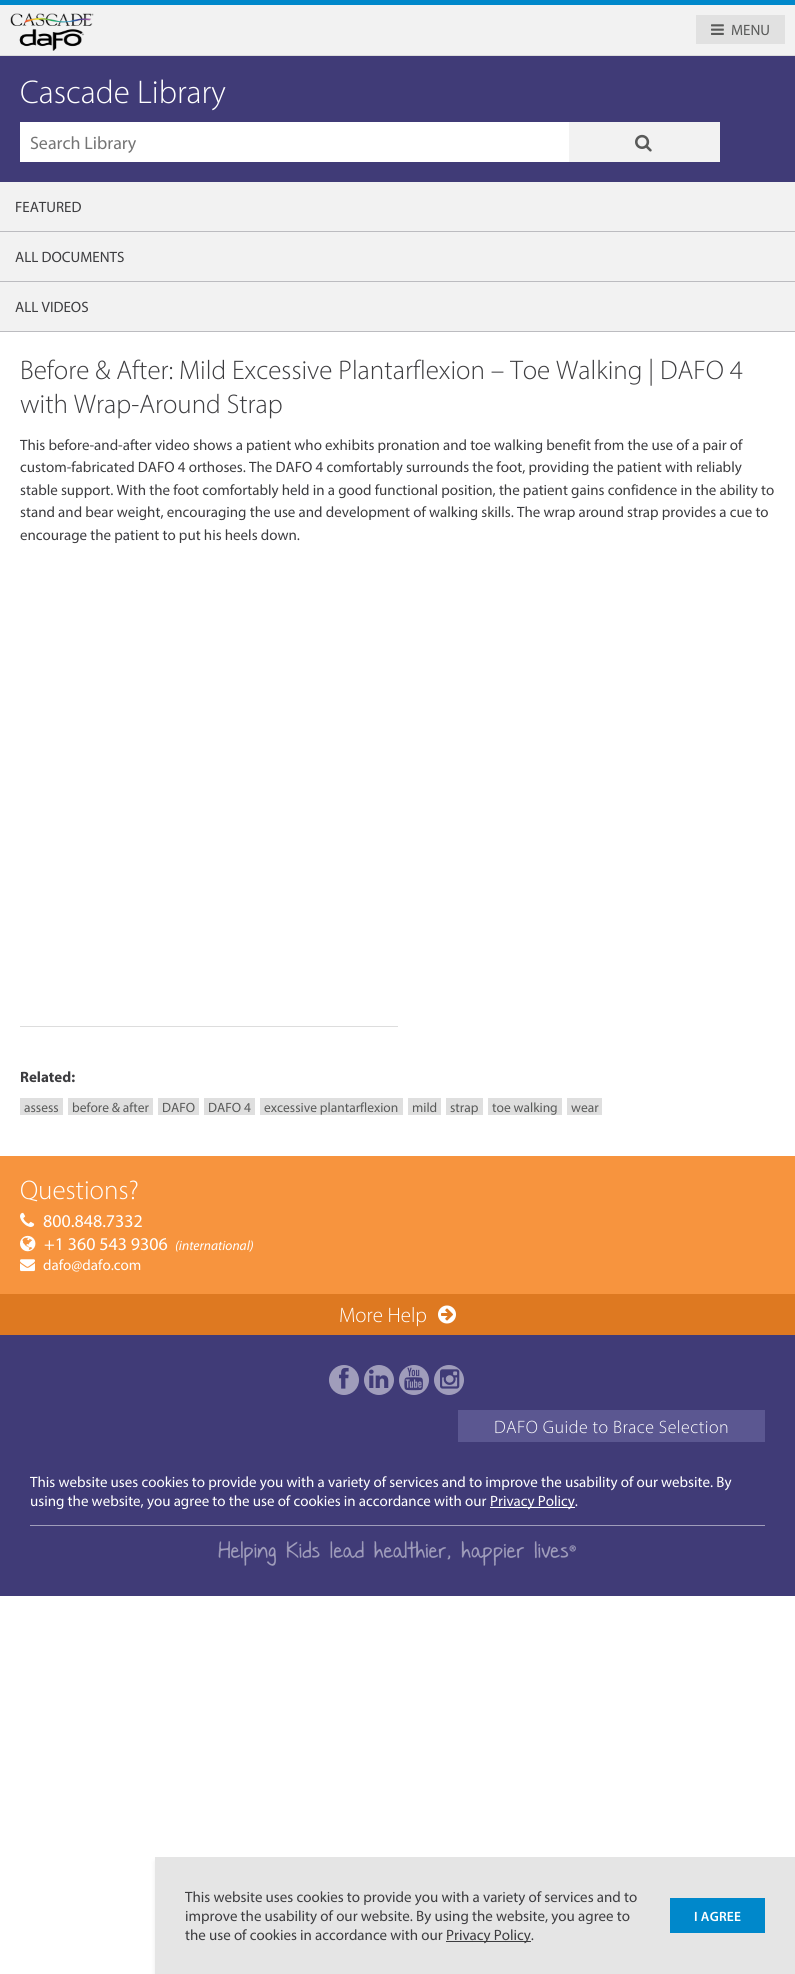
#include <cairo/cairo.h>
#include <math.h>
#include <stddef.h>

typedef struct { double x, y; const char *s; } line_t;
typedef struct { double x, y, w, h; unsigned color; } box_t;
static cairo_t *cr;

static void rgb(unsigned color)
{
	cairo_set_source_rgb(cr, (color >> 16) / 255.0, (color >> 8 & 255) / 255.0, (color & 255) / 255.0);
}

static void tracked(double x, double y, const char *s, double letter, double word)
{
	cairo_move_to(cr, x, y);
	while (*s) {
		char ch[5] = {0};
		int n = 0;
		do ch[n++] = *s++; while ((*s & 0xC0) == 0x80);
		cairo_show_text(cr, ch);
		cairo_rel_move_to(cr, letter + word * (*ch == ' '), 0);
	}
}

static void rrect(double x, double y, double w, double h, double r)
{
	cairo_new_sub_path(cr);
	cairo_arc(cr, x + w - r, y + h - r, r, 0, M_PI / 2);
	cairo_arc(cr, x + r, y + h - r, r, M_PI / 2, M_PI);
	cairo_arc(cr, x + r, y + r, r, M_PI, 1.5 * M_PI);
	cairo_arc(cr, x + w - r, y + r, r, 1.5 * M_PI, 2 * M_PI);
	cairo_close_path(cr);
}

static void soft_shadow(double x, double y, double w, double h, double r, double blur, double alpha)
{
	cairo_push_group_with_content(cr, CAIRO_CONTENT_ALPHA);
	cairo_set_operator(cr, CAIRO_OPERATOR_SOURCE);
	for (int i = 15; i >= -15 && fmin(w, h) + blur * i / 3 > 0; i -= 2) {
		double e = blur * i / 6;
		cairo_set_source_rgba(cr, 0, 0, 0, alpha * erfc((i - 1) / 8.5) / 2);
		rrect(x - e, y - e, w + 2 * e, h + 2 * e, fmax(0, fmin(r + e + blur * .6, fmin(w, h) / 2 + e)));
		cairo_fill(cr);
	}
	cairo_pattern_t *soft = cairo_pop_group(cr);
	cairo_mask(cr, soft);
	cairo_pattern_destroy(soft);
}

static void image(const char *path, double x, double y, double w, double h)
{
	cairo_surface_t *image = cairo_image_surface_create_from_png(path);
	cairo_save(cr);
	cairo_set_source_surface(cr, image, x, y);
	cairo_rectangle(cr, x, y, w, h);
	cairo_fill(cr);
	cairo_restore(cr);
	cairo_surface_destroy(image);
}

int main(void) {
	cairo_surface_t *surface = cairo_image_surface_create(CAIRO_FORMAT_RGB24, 795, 1974);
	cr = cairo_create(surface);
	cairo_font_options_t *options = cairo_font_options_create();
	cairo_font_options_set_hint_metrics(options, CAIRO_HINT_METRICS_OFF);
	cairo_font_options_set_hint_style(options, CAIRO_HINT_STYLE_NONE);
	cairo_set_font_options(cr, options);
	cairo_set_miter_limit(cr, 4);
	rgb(0xffffff);
	cairo_paint(cr);
	{
		static const box_t items[] = {
			{0, 5, 795, 50, 0xf2f2f2},
			{0, 0, 795, 5, 0x0088cb},
			{0, 55, 795, 1, 0xdddddd},
		};
		for (size_t i = 0; i < sizeof items / sizeof *items; i++) {
			rgb(items[i].color);
			cairo_rectangle(cr, items[i].x, items[i].y, items[i].w, items[i].h);
			cairo_fill(cr);
		}
	}
	image("img/1.png", 10, 13, 84, 38);
	rgb(0xe1e1e1);
	cairo_rectangle(cr, 696, 15, 89, 29);
	cairo_fill(cr);
	image("img/2.png", 711, 24, 13, 11);
	{
		static const box_t items[] = {
			{0, 56, 795, 126, 0x403b77},
			{20, 122, 549, 40, 0xffffff},
			{569, 122, 151, 40, 0xf2f2f2},
		};
		for (size_t i = 0; i < sizeof items / sizeof *items; i++) {
			rgb(items[i].color);
			cairo_rectangle(cr, items[i].x, items[i].y, items[i].w, items[i].h);
			cairo_fill(cr);
		}
	}
	image("img/3.png", 635, 134, 17, 18);
	{
		static const box_t items[] = {
			{0, 182, 795, 149, 0xf2f2f2},
			{0, 231, 795, 1, 0xbcbcc0},
			{0, 281, 795, 1, 0xbcbcc0},
			{0, 331, 795, 1, 0xbcbcc0},
			{20, 1026, 378, 1, 0xdddddd},
			{20, 1098, 43, 17, 0xdfdfdf},
			{68, 1098, 85, 17, 0xdfdfdf},
			{158, 1098, 41, 17, 0xdfdfdf},
			{204, 1098, 51, 17, 0xdfdfdf},
			{260, 1098, 143, 17, 0xdfdfdf},
			{408, 1098, 33, 17, 0xdfdfdf},
			{446, 1098, 37, 17, 0xdfdfdf},
			{488, 1098, 74, 17, 0xdfdfdf},
			{567, 1098, 35, 17, 0xdfdfdf},
		};
		for (size_t i = 0; i < sizeof items / sizeof *items; i++) {
			rgb(items[i].color);
			cairo_rectangle(cr, items[i].x, items[i].y, items[i].w, items[i].h);
			cairo_fill(cr);
		}
	}
	rgb(0x000000);
	soft_shadow(156, 1862, 638, 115, 0, 3, 0.1);
	{
		static const box_t items[] = {
			{155, 1857, 640, 117, 0xe5e5e5},
			{446, 1941, 85, 1, 0x3d3d40},
			{670, 1898, 95, 35, 0x0088cb},
			{0, 1156, 795, 138, 0xf7943e},
		};
		for (size_t i = 0; i < sizeof items / sizeof *items; i++) {
			rgb(items[i].color);
			cairo_rectangle(cr, items[i].x, items[i].y, items[i].w, items[i].h);
			cairo_fill(cr);
		}
	}
	image("img/4.png", 20, 1212, 15, 15);
	image("img/5.png", 20, 1235, 16, 17);
	image("img/6.png", 20, 1259, 15, 13);
	rgb(0xde7921);
	cairo_rectangle(cr, 0, 1294, 795, 41);
	cairo_fill(cr);
	image("img/7.png", 438, 1305, 18, 19);
	rgb(0x403b77);
	cairo_rectangle(cr, 0, 1335, 795, 261);
	cairo_fill(cr);
	rgb(0xa09dbb);
	cairo_arc(cr, 344, 1380, 15, 0, 2 * M_PI);
	cairo_fill(cr);
	image("img/8.png", 339, 1367, 10, 22);
	cairo_arc(cr, 379, 1380, 15, 0, 2 * M_PI);
	cairo_fill(cr);
	image("img/9.png", 369, 1369, 20, 19);
	cairo_arc(cr, 414, 1380, 15, 0, 2 * M_PI);
	cairo_fill(cr);
	image("img/10.png", 404, 1367, 19, 24);
	cairo_arc(cr, 449, 1380, 15, 0, 2 * M_PI);
	cairo_fill(cr);
	image("img/11.png", 440, 1369, 20, 20);
	{
		static const box_t items[] = {
			{458, 1410, 307, 32, 0x5b5791},
			{490, 1507, 85, 1, 0xffffff},
			{30, 1525, 735, 1, 0xa09dbb},
		};
		for (size_t i = 0; i < sizeof items / sizeof *items; i++) {
			rgb(items[i].color);
			cairo_rectangle(cr, items[i].x, items[i].y, items[i].w, items[i].h);
			cairo_fill(cr);
		}
	}
	image("img/12.png", 218, 1541, 358, 25);
	cairo_select_font_face(cr, "Myriad", CAIRO_FONT_SLANT_NORMAL, CAIRO_FONT_WEIGHT_NORMAL);
	cairo_set_font_size(cr, 15);
	rgb(0x595a59);
	cairo_move_to(cr, 731, 35);
	cairo_show_text(cr, "MENU");
	cairo_select_font_face(cr, "Myriad Light", CAIRO_FONT_SLANT_NORMAL, CAIRO_FONT_WEIGHT_NORMAL);
	cairo_set_font_size(cr, 33);
	rgb(0xffffff);
	cairo_move_to(cr, 20, 103);
	cairo_show_text(cr, "Cascade Library");
	cairo_select_font_face(cr, "Myriad", CAIRO_FONT_SLANT_NORMAL, CAIRO_FONT_WEIGHT_NORMAL);
	cairo_set_font_size(cr, 18);
	rgb(0x757575);
	cairo_move_to(cr, 30, 149);
	cairo_show_text(cr, "Search Library");
	cairo_set_font_size(cr, 15);
	rgb(0x3d3d40);
	{
		static const line_t items[] = {
			{15, 212, "FEATURED"},
			{15, 262, "ALL DOCUMENTS"},
			{15, 312, "ALL VIDEOS"},
		};
		for (size_t i = 0; i < sizeof items / sizeof *items; i++) {
			cairo_move_to(cr, items[i].x, items[i].y);
			cairo_show_text(cr, items[i].s);
		}
	}
	cairo_select_font_face(cr, "Myriad Light", CAIRO_FONT_SLANT_NORMAL, CAIRO_FONT_WEIGHT_NORMAL);
	cairo_set_font_size(cr, 27);
	cairo_move_to(cr, 20, 379);
	cairo_show_text(cr, "Before & After: Mild Excessive Plantarflexion – Toe Walking | DAFO 4");
	cairo_move_to(cr, 20, 413);
	cairo_show_text(cr, "with Wrap-Around Strap");
	cairo_select_font_face(cr, "Myriad", CAIRO_FONT_SLANT_NORMAL, CAIRO_FONT_WEIGHT_NORMAL);
	cairo_set_font_size(cr, 15);
	{
		static const line_t items[] = {
			{20, 450, "This before-and-after video shows a patient who exhibits pronation and toe walking benefit from the use of a pair of"},
			{20, 472, "custom-fabricated DAFO 4 orthoses. The DAFO 4 comfortably surrounds the foot, providing the patient with reliably"},
			{20, 495, "stable support. With the foot comfortably held in a good functional position, the patient gains confidence in the ability to"},
			{20, 517, "stand and bear weight, encouraging the use and development of walking skills. The wrap around strap provides a cue to"},
			{20, 540, "encourage the patient to put his heels down."},
		};
		for (size_t i = 0; i < sizeof items / sizeof *items; i++) {
			cairo_move_to(cr, items[i].x, items[i].y);
			cairo_show_text(cr, items[i].s);
		}
	}
	cairo_select_font_face(cr, "Myriad", CAIRO_FONT_SLANT_NORMAL, CAIRO_FONT_WEIGHT_BOLD);
	cairo_move_to(cr, 20, 1082);
	cairo_show_text(cr, "Related:");
	cairo_select_font_face(cr, "Myriad", CAIRO_FONT_SLANT_NORMAL, CAIRO_FONT_WEIGHT_NORMAL);
	cairo_set_font_size(cr, 13.5);
	rgb(0x595a59);
	{
		static const line_t items[] = {
			{24, 1112, "assess"},
			{72, 1112, "before & after"},
			{162, 1112, "DAFO"},
			{208, 1112, "DAFO 4"},
			{264, 1112, "excessive plantarflexion"},
			{412, 1112, "mild"},
			{450, 1112, "strap"},
			{492, 1112, "toe walking"},
			{571, 1112, "wear"},
		};
		for (size_t i = 0; i < sizeof items / sizeof *items; i++) {
			cairo_move_to(cr, items[i].x, items[i].y);
			cairo_show_text(cr, items[i].s);
		}
	}
	cairo_set_font_size(cr, 15);
	rgb(0x3d3d40);
	{
		static const line_t items[] = {
			{185, 1902, "This website uses cookies to provide you with a variety of services and to"},
			{185, 1921, "improve the usability of our website. By using the website, you agree to"},
			{185, 1940, "the use of cookies in accordance with our"},
			{446, 1940, "Privacy Policy."},
		};
		for (size_t i = 0; i < sizeof items / sizeof *items; i++) {
			cairo_move_to(cr, items[i].x, items[i].y);
			cairo_show_text(cr, items[i].s);
		}
	}
	cairo_select_font_face(cr, "Myriad SemiBold", CAIRO_FONT_SLANT_NORMAL, CAIRO_FONT_WEIGHT_NORMAL);
	cairo_set_font_size(cr, 13.5);
	rgb(0xffffff);
	tracked(694, 1921, "I AGREE", 0.25, 0);
	cairo_select_font_face(cr, "Myriad Light", CAIRO_FONT_SLANT_NORMAL, CAIRO_FONT_WEIGHT_NORMAL);
	cairo_set_font_size(cr, 27);
	cairo_move_to(cr, 20, 1199);
	cairo_show_text(cr, "Questions?");
	cairo_select_font_face(cr, "Myriad", CAIRO_FONT_SLANT_NORMAL, CAIRO_FONT_WEIGHT_NORMAL);
	cairo_set_font_size(cr, 18);
	cairo_move_to(cr, 43, 1227);
	cairo_show_text(cr, "800.848.7332");
	cairo_move_to(cr, 44, 1250);
	cairo_show_text(cr, "+1 360 543 9306");
	cairo_select_font_face(cr, "Myriad", CAIRO_FONT_SLANT_ITALIC, CAIRO_FONT_WEIGHT_NORMAL);
	cairo_set_font_size(cr, 13.5);
	cairo_move_to(cr, 175, 1250);
	cairo_show_text(cr, "(international)");
	cairo_select_font_face(cr, "Myriad", CAIRO_FONT_SLANT_NORMAL, CAIRO_FONT_WEIGHT_NORMAL);
	cairo_set_font_size(cr, 15);
	cairo_move_to(cr, 43, 1270);
	cairo_show_text(cr, "dafo@dafo.com");
	cairo_select_font_face(cr, "Myriad Light", CAIRO_FONT_SLANT_NORMAL, CAIRO_FONT_WEIGHT_NORMAL);
	cairo_set_font_size(cr, 21);
	cairo_move_to(cr, 339, 1322);
	cairo_show_text(cr, "More Help");
	cairo_set_font_size(cr, 18);
	tracked(494, 1433, "DAFO Guide to Brace Selection", 0.45, 0);
	cairo_select_font_face(cr, "Myriad", CAIRO_FONT_SLANT_NORMAL, CAIRO_FONT_WEIGHT_NORMAL);
	cairo_set_font_size(cr, 15);
	{
		static const line_t items[] = {
			{30, 1487, "This website uses cookies to provide you with a variety of services and to improve the usability of our website. By"},
			{30, 1506, "using the website, you agree to the use of cookies in accordance with our"},
			{490, 1506, "Privacy Policy."},
		};
		for (size_t i = 0; i < sizeof items / sizeof *items; i++) {
			cairo_move_to(cr, items[i].x, items[i].y);
			cairo_show_text(cr, items[i].s);
		}
	}
	cairo_surface_write_to_png(surface, "page.png");
	cairo_font_options_destroy(options);
	cairo_destroy(cr);
	cairo_surface_destroy(surface);
	return 0;
}
